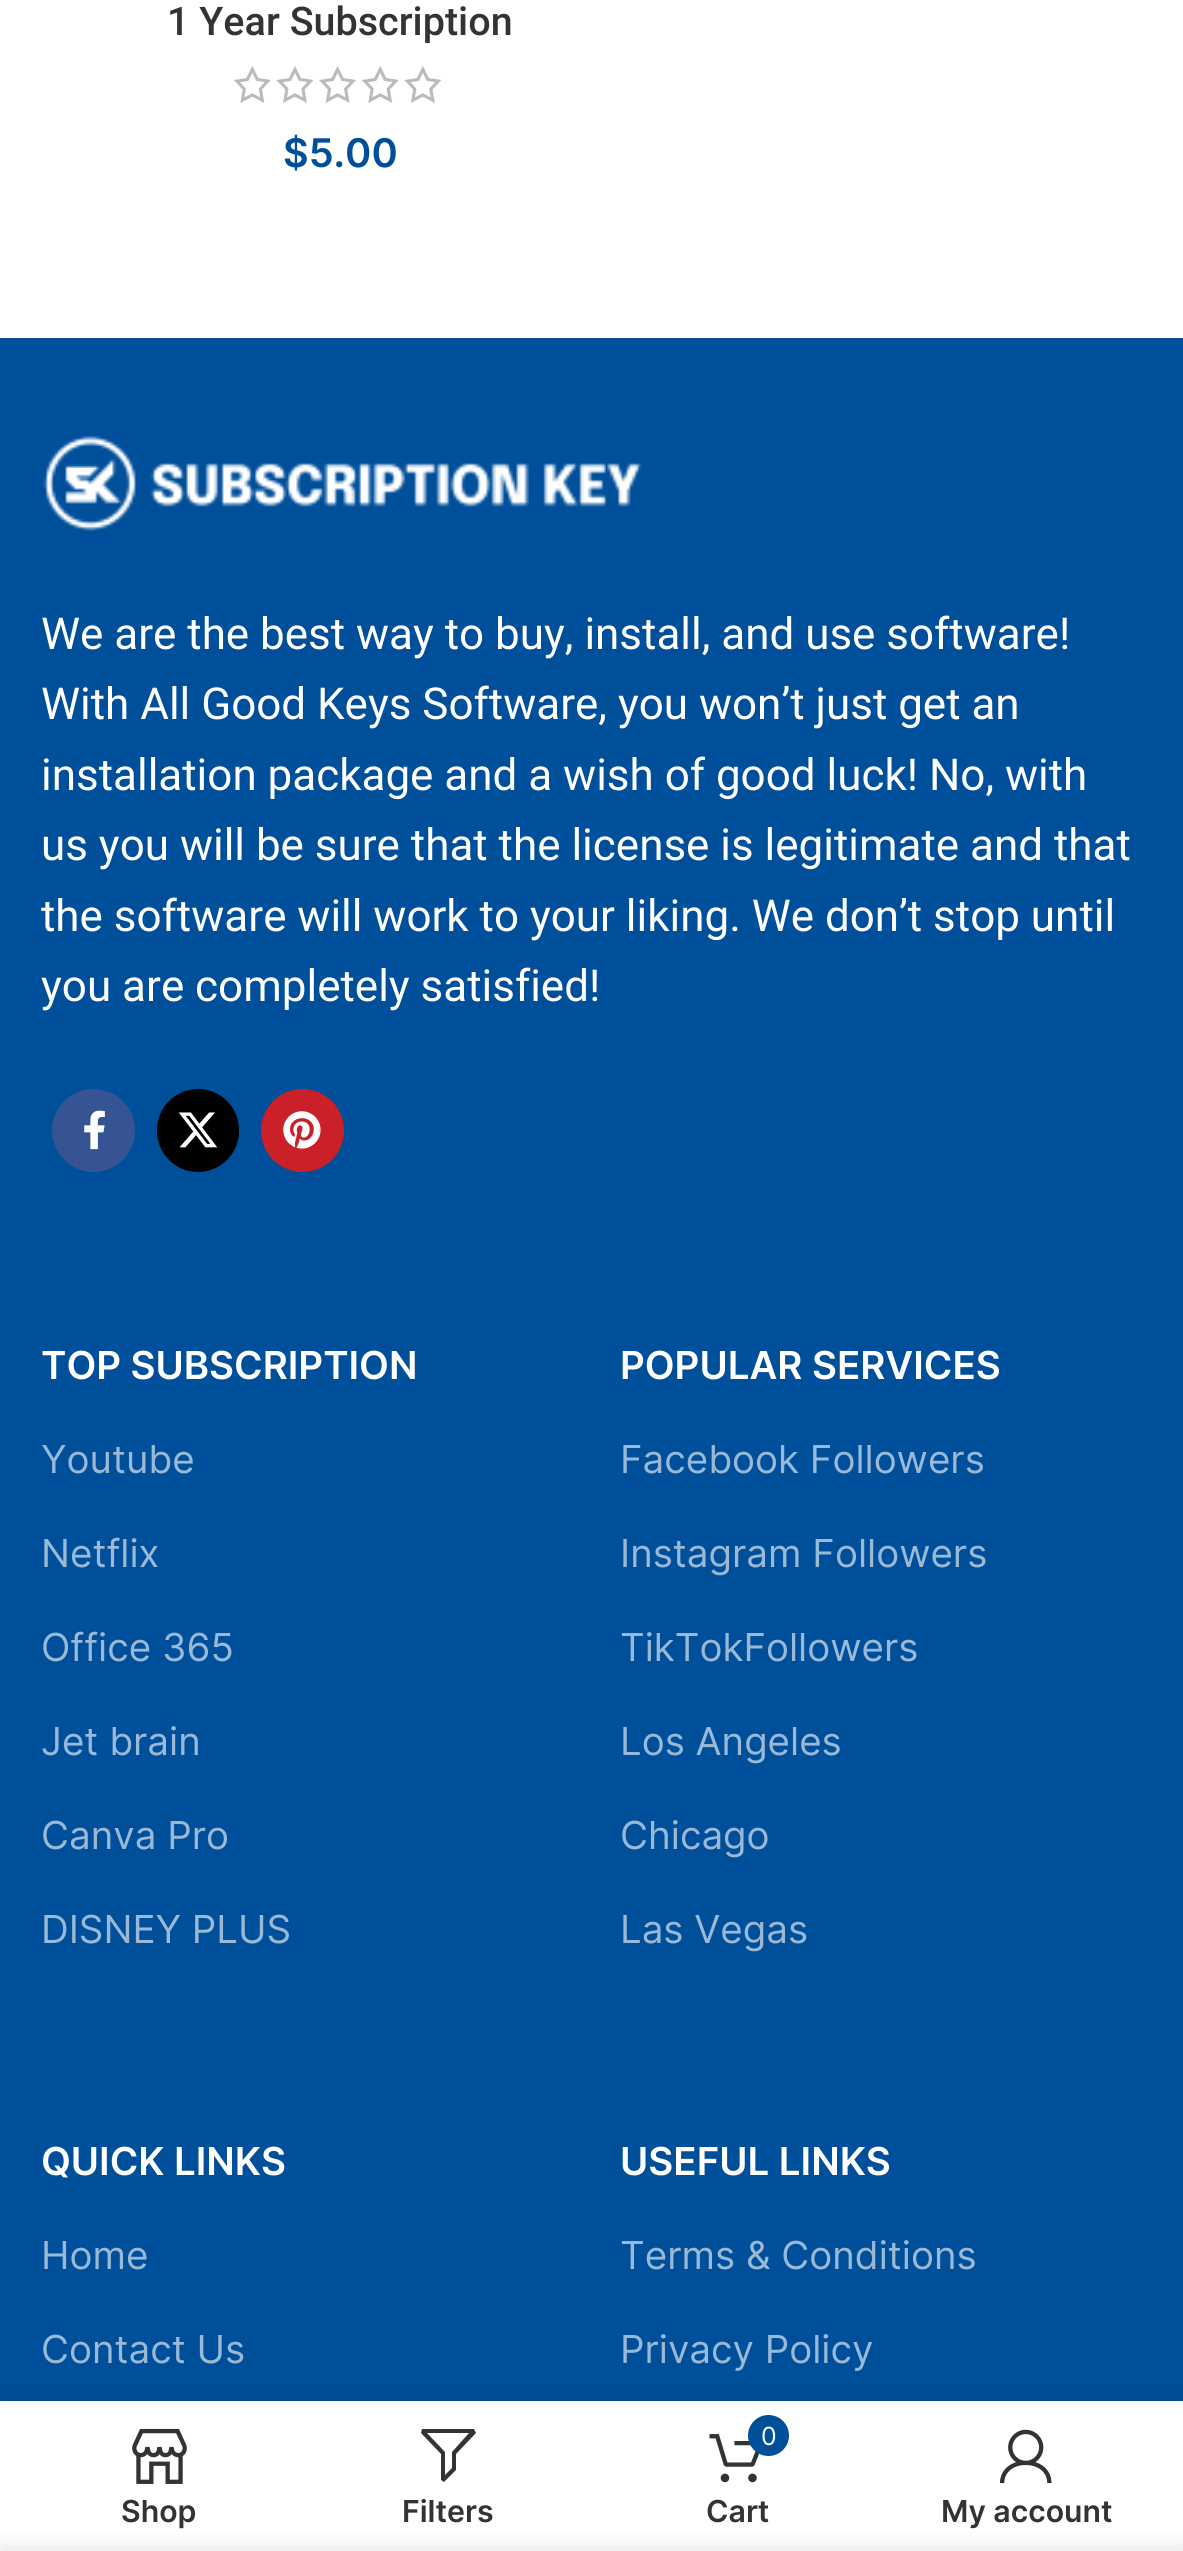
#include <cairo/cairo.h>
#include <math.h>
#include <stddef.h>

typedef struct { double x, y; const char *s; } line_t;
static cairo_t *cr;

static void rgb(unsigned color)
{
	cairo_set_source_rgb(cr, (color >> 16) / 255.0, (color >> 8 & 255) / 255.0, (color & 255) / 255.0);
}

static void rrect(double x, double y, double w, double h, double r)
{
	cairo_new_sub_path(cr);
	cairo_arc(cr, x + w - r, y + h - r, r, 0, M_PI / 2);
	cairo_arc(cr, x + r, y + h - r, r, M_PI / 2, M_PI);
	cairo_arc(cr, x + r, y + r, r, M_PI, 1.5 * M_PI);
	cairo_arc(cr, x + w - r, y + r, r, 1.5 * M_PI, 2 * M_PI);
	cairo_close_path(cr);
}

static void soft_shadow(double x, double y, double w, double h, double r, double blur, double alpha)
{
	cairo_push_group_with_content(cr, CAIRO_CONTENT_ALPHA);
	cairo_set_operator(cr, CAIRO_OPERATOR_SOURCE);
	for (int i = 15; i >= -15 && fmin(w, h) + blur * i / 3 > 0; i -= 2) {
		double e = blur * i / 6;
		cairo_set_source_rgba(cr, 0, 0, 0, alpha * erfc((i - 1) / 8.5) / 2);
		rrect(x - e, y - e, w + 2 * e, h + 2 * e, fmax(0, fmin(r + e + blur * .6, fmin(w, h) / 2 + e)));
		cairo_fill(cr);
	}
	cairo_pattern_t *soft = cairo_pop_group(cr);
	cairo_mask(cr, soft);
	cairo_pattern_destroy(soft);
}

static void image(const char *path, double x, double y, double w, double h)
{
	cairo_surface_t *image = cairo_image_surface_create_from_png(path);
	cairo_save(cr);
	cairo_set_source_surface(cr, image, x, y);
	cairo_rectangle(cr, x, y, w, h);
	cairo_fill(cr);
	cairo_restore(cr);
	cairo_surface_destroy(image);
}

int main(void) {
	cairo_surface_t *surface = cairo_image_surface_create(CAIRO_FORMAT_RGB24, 1183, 2551);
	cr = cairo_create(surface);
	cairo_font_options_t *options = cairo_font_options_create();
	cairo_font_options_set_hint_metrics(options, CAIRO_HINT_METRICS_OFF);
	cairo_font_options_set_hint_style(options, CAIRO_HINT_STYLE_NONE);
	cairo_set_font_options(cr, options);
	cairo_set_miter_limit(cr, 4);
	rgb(0xffffff);
	cairo_paint(cr);
	image("img/1.png", 234, 66, 208, 37);
	rgb(0x004f9a);
	cairo_rectangle(cr, 0, 338, 1183, 2063);
	cairo_fill(cr);
	image("img/2.png", 43, 436, 599, 95);
	rgb(0x365493);
	cairo_arc(cr, 93.5, 1130.5, 41.5, 0, 2 * M_PI);
	cairo_fill(cr);
	image("img/3.png", 84, 1110, 21, 40);
	rgb(0x000000);
	rrect(157, 1089, 82, 83, 41);
	cairo_fill(cr);
	image("img/4.png", 178, 1112, 40, 36);
	rgb(0xcb2027);
	cairo_arc(cr, 302.5, 1130.5, 41.5, 0, 2 * M_PI);
	cairo_fill(cr);
	image("img/5.png", 283, 1111, 38, 38);
	rgb(0x000000);
	soft_shadow(0, 2401, 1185, 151, 0, 12.5, 0.12);
	rgb(0xffffff);
	cairo_rectangle(cr, 0, 2401, 1183, 150);
	cairo_fill(cr);
	image("img/6.png", 132, 2428, 55, 56);
	rgb(0x333333);
	cairo_new_path(cr);
	cairo_move_to(cr, 422, 2429);
	cairo_line_to(cr, 421, 2433);
	cairo_line_to(cr, 441, 2454);
	cairo_line_to(cr, 441, 2480);
	cairo_line_to(cr, 444, 2482);
	cairo_line_to(cr, 456, 2470);
	cairo_line_to(cr, 456, 2454);
	cairo_line_to(cr, 476, 2433);
	cairo_line_to(cr, 474, 2429);
	cairo_close_path(cr);
	cairo_move_to(cr, 427, 2433);
	cairo_line_to(cr, 469, 2433);
	cairo_line_to(cr, 452, 2452);
	cairo_line_to(cr, 452, 2468);
	cairo_line_to(cr, 445, 2475);
	cairo_line_to(cr, 445, 2452);
	cairo_close_path(cr);
	cairo_fill(cr);
	image("img/7.png", 709, 2434, 51, 49);
	rgb(0x004f9a);
	cairo_arc(cr, 768.5, 2435.5, 20.5, 0, 2 * M_PI);
	cairo_fill(cr);
	image("img/8.png", 1000, 2429, 52, 55);
	rgb(0x000000);
	soft_shadow(0, 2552, 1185, 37, 0, 12.5, 0.14);
	cairo_select_font_face(cr, "Roboto Medium", CAIRO_FONT_SLANT_NORMAL, CAIRO_FONT_WEIGHT_NORMAL);
	cairo_set_font_size(cr, 39.5);
	rgb(0x333333);
	cairo_move_to(cr, 167, 35);
	cairo_show_text(cr, "1 Year Subscription");
	cairo_select_font_face(cr, "Inter SemiBold", CAIRO_FONT_SLANT_NORMAL, CAIRO_FONT_WEIGHT_NORMAL);
	rgb(0x004f9a);
	cairo_move_to(cr, 283, 167);
	cairo_show_text(cr, "$5.00");
	cairo_select_font_face(cr, "Roboto", CAIRO_FONT_SLANT_NORMAL, CAIRO_FONT_WEIGHT_NORMAL);
	cairo_set_font_size(cr, 44);
	rgb(0xffffff);
	{
		static const line_t items[] = {
			{41, 649, "We are the best way to buy, install, and use software!"},
			{41, 719, "With All Good Keys Software, you won’t just get an"},
			{41, 790, "installation package and a wish of good luck! No, with"},
			{41, 860, "us you will be sure that the license is legitimate and that"},
			{41, 931, "the software will work to your liking. We don’t stop until"},
			{41, 1001, "you are completely satisfied!"},
		};
		for (size_t i = 0; i < sizeof items / sizeof *items; i++) {
			cairo_move_to(cr, items[i].x, items[i].y);
			cairo_show_text(cr, items[i].s);
		}
	}
	cairo_select_font_face(cr, "Inter SemiBold", CAIRO_FONT_SLANT_NORMAL, CAIRO_FONT_WEIGHT_NORMAL);
	cairo_set_font_size(cr, 38.5);
	cairo_move_to(cr, 41, 1379);
	cairo_show_text(cr, "TOP SUBSCRIPTION");
	cairo_select_font_face(cr, "Inter", CAIRO_FONT_SLANT_NORMAL, CAIRO_FONT_WEIGHT_NORMAL);
	rgb(0x99b9d7);
	{
		static const line_t items[] = {
			{41, 1473, "Youtube"},
			{41, 1567, "Netflix"},
			{41, 1661, "Office 365"},
			{41, 1755, "Jet brain"},
			{41, 1849, "Canva Pro"},
			{41, 1943, "DISNEY PLUS"},
		};
		for (size_t i = 0; i < sizeof items / sizeof *items; i++) {
			cairo_move_to(cr, items[i].x, items[i].y);
			cairo_show_text(cr, items[i].s);
		}
	}
	cairo_select_font_face(cr, "Inter SemiBold", CAIRO_FONT_SLANT_NORMAL, CAIRO_FONT_WEIGHT_NORMAL);
	rgb(0xffffff);
	cairo_move_to(cr, 620, 1379);
	cairo_show_text(cr, "POPULAR SERVICES");
	cairo_select_font_face(cr, "Inter", CAIRO_FONT_SLANT_NORMAL, CAIRO_FONT_WEIGHT_NORMAL);
	rgb(0x99b9d7);
	{
		static const line_t items[] = {
			{620, 1473, "Facebook Followers"},
			{620, 1567, "Instagram Followers"},
			{620, 1661, "TikTokFollowers"},
			{620, 1755, "Los Angeles"},
			{620, 1849, "Chicago"},
			{620, 1943, "Las Vegas"},
		};
		for (size_t i = 0; i < sizeof items / sizeof *items; i++) {
			cairo_move_to(cr, items[i].x, items[i].y);
			cairo_show_text(cr, items[i].s);
		}
	}
	cairo_select_font_face(cr, "Inter SemiBold", CAIRO_FONT_SLANT_NORMAL, CAIRO_FONT_WEIGHT_NORMAL);
	rgb(0xffffff);
	cairo_move_to(cr, 41, 2175);
	cairo_show_text(cr, "QUICK LINKS");
	cairo_select_font_face(cr, "Inter", CAIRO_FONT_SLANT_NORMAL, CAIRO_FONT_WEIGHT_NORMAL);
	rgb(0x99b9d7);
	cairo_move_to(cr, 41, 2269);
	cairo_show_text(cr, "Home");
	cairo_move_to(cr, 41, 2363);
	cairo_show_text(cr, "Contact Us");
	cairo_select_font_face(cr, "Inter SemiBold", CAIRO_FONT_SLANT_NORMAL, CAIRO_FONT_WEIGHT_NORMAL);
	rgb(0xffffff);
	cairo_move_to(cr, 620, 2175);
	cairo_show_text(cr, "USEFUL LINKS");
	cairo_select_font_face(cr, "Inter", CAIRO_FONT_SLANT_NORMAL, CAIRO_FONT_WEIGHT_NORMAL);
	rgb(0x99b9d7);
	cairo_move_to(cr, 620, 2269);
	cairo_show_text(cr, "Terms & Conditions");
	cairo_move_to(cr, 620, 2363);
	cairo_show_text(cr, "Privacy Policy");
	cairo_select_font_face(cr, "Inter SemiBold", CAIRO_FONT_SLANT_NORMAL, CAIRO_FONT_WEIGHT_NORMAL);
	cairo_set_font_size(cr, 30.25);
	rgb(0x333333);
	cairo_move_to(cr, 121, 2522);
	cairo_show_text(cr, "Shop");
	cairo_move_to(cr, 402, 2522);
	cairo_show_text(cr, "Filters");
	cairo_select_font_face(cr, "Inter", CAIRO_FONT_SLANT_NORMAL, CAIRO_FONT_WEIGHT_NORMAL);
	cairo_set_font_size(cr, 25);
	rgb(0xffffff);
	cairo_move_to(cr, 761, 2445);
	cairo_show_text(cr, "0");
	cairo_select_font_face(cr, "Inter SemiBold", CAIRO_FONT_SLANT_NORMAL, CAIRO_FONT_WEIGHT_NORMAL);
	cairo_set_font_size(cr, 30.25);
	rgb(0x333333);
	cairo_move_to(cr, 706, 2522);
	cairo_show_text(cr, "Cart");
	cairo_move_to(cr, 941, 2522);
	cairo_show_text(cr, "My account");
	cairo_surface_write_to_png(surface, "page.png");
	cairo_font_options_destroy(options);
	cairo_destroy(cr);
	cairo_surface_destroy(surface);
	return 0;
}
